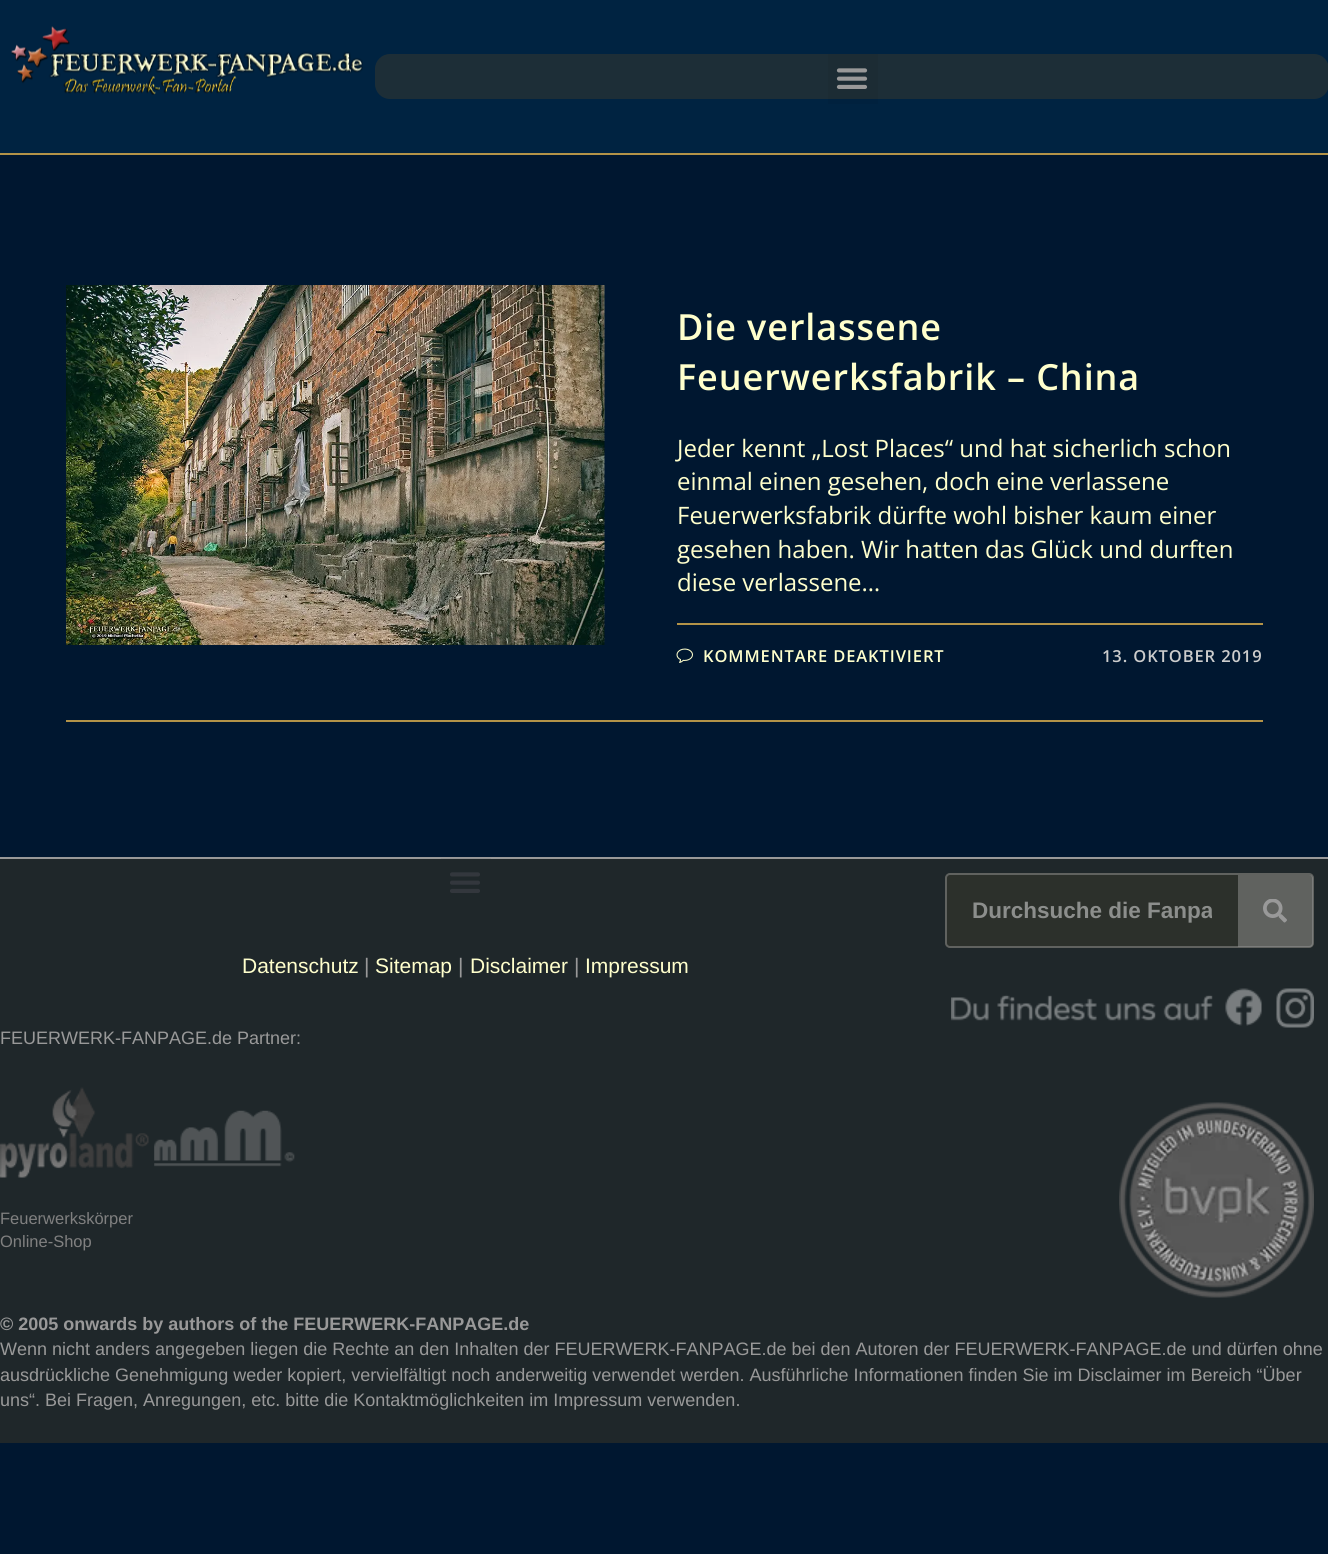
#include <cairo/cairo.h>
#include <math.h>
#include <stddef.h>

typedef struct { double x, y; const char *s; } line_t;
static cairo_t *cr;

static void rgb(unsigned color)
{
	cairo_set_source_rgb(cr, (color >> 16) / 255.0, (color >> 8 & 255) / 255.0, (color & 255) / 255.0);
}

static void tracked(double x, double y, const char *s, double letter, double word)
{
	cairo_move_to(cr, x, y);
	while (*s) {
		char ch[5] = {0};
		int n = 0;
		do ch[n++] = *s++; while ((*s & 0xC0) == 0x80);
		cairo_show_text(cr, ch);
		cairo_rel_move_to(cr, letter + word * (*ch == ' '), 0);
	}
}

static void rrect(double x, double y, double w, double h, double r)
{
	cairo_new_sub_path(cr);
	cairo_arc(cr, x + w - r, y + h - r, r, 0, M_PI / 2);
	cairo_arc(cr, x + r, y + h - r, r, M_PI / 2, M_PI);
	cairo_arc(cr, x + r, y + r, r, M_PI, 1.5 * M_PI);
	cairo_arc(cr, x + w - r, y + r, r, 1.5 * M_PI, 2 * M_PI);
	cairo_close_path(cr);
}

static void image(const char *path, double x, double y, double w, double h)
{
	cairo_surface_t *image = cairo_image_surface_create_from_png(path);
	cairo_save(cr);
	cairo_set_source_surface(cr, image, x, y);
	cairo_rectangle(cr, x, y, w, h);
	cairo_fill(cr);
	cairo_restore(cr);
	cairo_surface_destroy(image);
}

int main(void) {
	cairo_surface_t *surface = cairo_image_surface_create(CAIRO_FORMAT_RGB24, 1328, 1554);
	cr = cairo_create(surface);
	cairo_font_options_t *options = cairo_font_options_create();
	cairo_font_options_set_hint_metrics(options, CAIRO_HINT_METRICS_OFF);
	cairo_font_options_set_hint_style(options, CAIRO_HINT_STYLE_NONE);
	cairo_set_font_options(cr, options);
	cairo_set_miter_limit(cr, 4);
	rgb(0x001730);
	cairo_paint(cr);
	rgb(0x002341);
	cairo_rectangle(cr, 0, 0, 1328, 153);
	cairo_fill(cr);
	rgb(0xb39348);
	cairo_rectangle(cr, 0, 153, 1328, 2);
	cairo_fill(cr);
	image("img/1.png", 11, 26, 352, 69);
	rgb(0x1d2e37);
	rrect(375, 54, 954, 45, 15);
	cairo_fill(cr);
	cairo_set_source_rgba(cr, 0, 0, 0, 0.05);
	cairo_rectangle(cr, 828, 54, 50, 50);
	cairo_fill(cr);
	image("img/2.png", 836, 68, 32, 21);
	rgb(0xb39348);
	cairo_rectangle(cr, 66, 720, 1197, 2);
	cairo_fill(cr);
	image("img/3.png", 66, 285, 539, 360);
	cairo_rectangle(cr, 677, 623, 586, 2);
	cairo_fill(cr);
	image("img/4.png", 676, 648, 17, 15);
	rgb(0x1f272a);
	cairo_rectangle(cr, 0, 859, 1328, 584);
	cairo_fill(cr);
	rgb(0x999999);
	cairo_rectangle(cr, 0, 857, 1328, 2);
	cairo_fill(cr);
	rgb(0x2c302b);
	rrect(945, 873, 369, 75, 5);
	cairo_fill(cr);
	rrect(946, 874, 367, 73, 4);
	cairo_set_source_rgba(cr, 0.6, 0.6, 0.6, 0.48);
	cairo_stroke(cr);
	cairo_new_path(cr);
	cairo_move_to(cr, 1238, 875);
	cairo_line_to(cr, 1310, 875);
	cairo_curve_to(cr, 1311.5, 875, 1313, 876.5, 1313, 878);
	cairo_line_to(cr, 1313, 944);
	cairo_curve_to(cr, 1313, 945.5, 1311.5, 947, 1310, 947);
	cairo_line_to(cr, 1238, 947);
	cairo_close_path(cr);
	cairo_fill(cr);
	image("img/5.png", 1263, 899, 24, 24);
	cairo_set_source_rgba(cr, 0, 0, 0, 0.05);
	cairo_rectangle(cr, 441, 858, 50, 1);
	cairo_fill(cr);
	image("img/6.png", 450, 872, 30, 21);
	image("img/7.png", 951, 988, 311, 38);
	image("img/8.png", 1276, 988, 38, 40);
	image("img/9.png", 154, 1110, 141, 57);
	image("img/10.png", 1119, 1102, 195, 196);
	image("img/11.png", 0, 1087, 149, 91);
	cairo_select_font_face(cr, "Open Sans SemiBold", CAIRO_FONT_SLANT_NORMAL, CAIRO_FONT_WEIGHT_NORMAL);
	cairo_set_font_size(cr, 36);
	rgb(0xffffcc);
	tracked(677, 340, "Die verlassene", 0.9, 0);
	tracked(677, 390, "Feuerwerksfabrik – China", 0.9, 0);
	cairo_select_font_face(cr, "Open Sans", CAIRO_FONT_SLANT_NORMAL, CAIRO_FONT_WEIGHT_NORMAL);
	cairo_set_font_size(cr, 24);
	{
		static const line_t items[] = {
			{677, 457, "Jeder kennt „Lost Places“ und hat sicherlich schon"},
			{677, 490, "einmal einen gesehen, doch eine verlassene"},
			{677, 524, "Feuerwerksfabrik dürfte wohl bisher kaum einer"},
			{677, 558, "gesehen haben. Wir hatten das Glück und durften"},
			{677, 591, "diese verlassene…"},
		};
		for (size_t i = 0; i < sizeof items / sizeof *items; i++) {
			cairo_move_to(cr, items[i].x, items[i].y);
			cairo_show_text(cr, items[i].s);
		}
	}
	cairo_select_font_face(cr, "Open Sans SemiBold", CAIRO_FONT_SLANT_NORMAL, CAIRO_FONT_WEIGHT_NORMAL);
	cairo_set_font_size(cr, 16.5);
	tracked(703, 662, "KOMMENTARE DEAKTIVIERT", 0.9, 0);
	rgb(0xcccccc);
	tracked(1102, 662, "13. OKTOBER 2019", 0.9, 0);
	cairo_save(cr);
	cairo_rectangle(cr, 972, 897, 240, 26);
	cairo_clip(cr);
	cairo_select_font_face(cr, "Liberation Sans", CAIRO_FONT_SLANT_NORMAL, CAIRO_FONT_WEIGHT_BOLD);
	cairo_set_font_size(cr, 22.5);
	rgb(0x8c8e8c);
	cairo_move_to(cr, 972, 918);
	cairo_show_text(cr, "Durchsuche die Fanpa");
	cairo_restore(cr);
	cairo_select_font_face(cr, "Liberation Sans", CAIRO_FONT_SLANT_NORMAL, CAIRO_FONT_WEIGHT_NORMAL);
	cairo_set_font_size(cr, 21);
	rgb(0xffffcc);
	cairo_move_to(cr, 242, 973);
	cairo_show_text(cr, "Datenschutz");
	rgb(0x999999);
	cairo_move_to(cr, 364, 973);
	cairo_show_text(cr, "|");
	rgb(0xffffcc);
	cairo_move_to(cr, 375, 973);
	cairo_show_text(cr, "Sitemap");
	rgb(0x999999);
	cairo_move_to(cr, 458, 973);
	cairo_show_text(cr, "|");
	rgb(0xffffcc);
	cairo_move_to(cr, 470, 973);
	cairo_show_text(cr, "Disclaimer");
	rgb(0x999999);
	cairo_move_to(cr, 574, 973);
	cairo_show_text(cr, "|");
	rgb(0xffffcc);
	cairo_move_to(cr, 585, 973);
	cairo_show_text(cr, "Impressum");
	cairo_set_font_size(cr, 18);
	rgb(0x999999);
	cairo_move_to(cr, 0, 1044);
	cairo_show_text(cr, "FEUERWERK-FANPAGE.de Partner:");
	cairo_set_font_size(cr, 16.5);
	rgb(0x808080);
	cairo_move_to(cr, 0, 1224);
	cairo_show_text(cr, "Feuerwerkskörper");
	cairo_move_to(cr, 0, 1247);
	cairo_show_text(cr, "Online-Shop");
	cairo_select_font_face(cr, "Liberation Sans", CAIRO_FONT_SLANT_NORMAL, CAIRO_FONT_WEIGHT_BOLD);
	cairo_set_font_size(cr, 18);
	rgb(0x999999);
	cairo_move_to(cr, 0, 1330);
	cairo_show_text(cr, "© 2005 onwards by authors of the FEUERWERK-FANPAGE.de");
	cairo_select_font_face(cr, "Liberation Sans", CAIRO_FONT_SLANT_NORMAL, CAIRO_FONT_WEIGHT_NORMAL);
	{
		static const line_t items[] = {
			{0, 1355, "Wenn nicht anders angegeben liegen die Rechte an den Inhalten der FEUERWERK-FANPAGE.de bei den Autoren der FEUERWERK-FANPAGE.de und dürfen ohne"},
			{0, 1381, "ausdrückliche Genehmigung weder kopiert, vervielfältigt noch anderweitig verwendet werden. Ausführliche Informationen finden Sie im Disclaimer im Bereich “Über"},
			{0, 1406, "uns“. Bei Fragen, Anregungen, etc. bitte die Kontaktmöglichkeiten im Impressum verwenden."},
		};
		for (size_t i = 0; i < sizeof items / sizeof *items; i++) {
			cairo_move_to(cr, items[i].x, items[i].y);
			cairo_show_text(cr, items[i].s);
		}
	}
	cairo_surface_write_to_png(surface, "page.png");
	cairo_font_options_destroy(options);
	cairo_destroy(cr);
	cairo_surface_destroy(surface);
	return 0;
}
